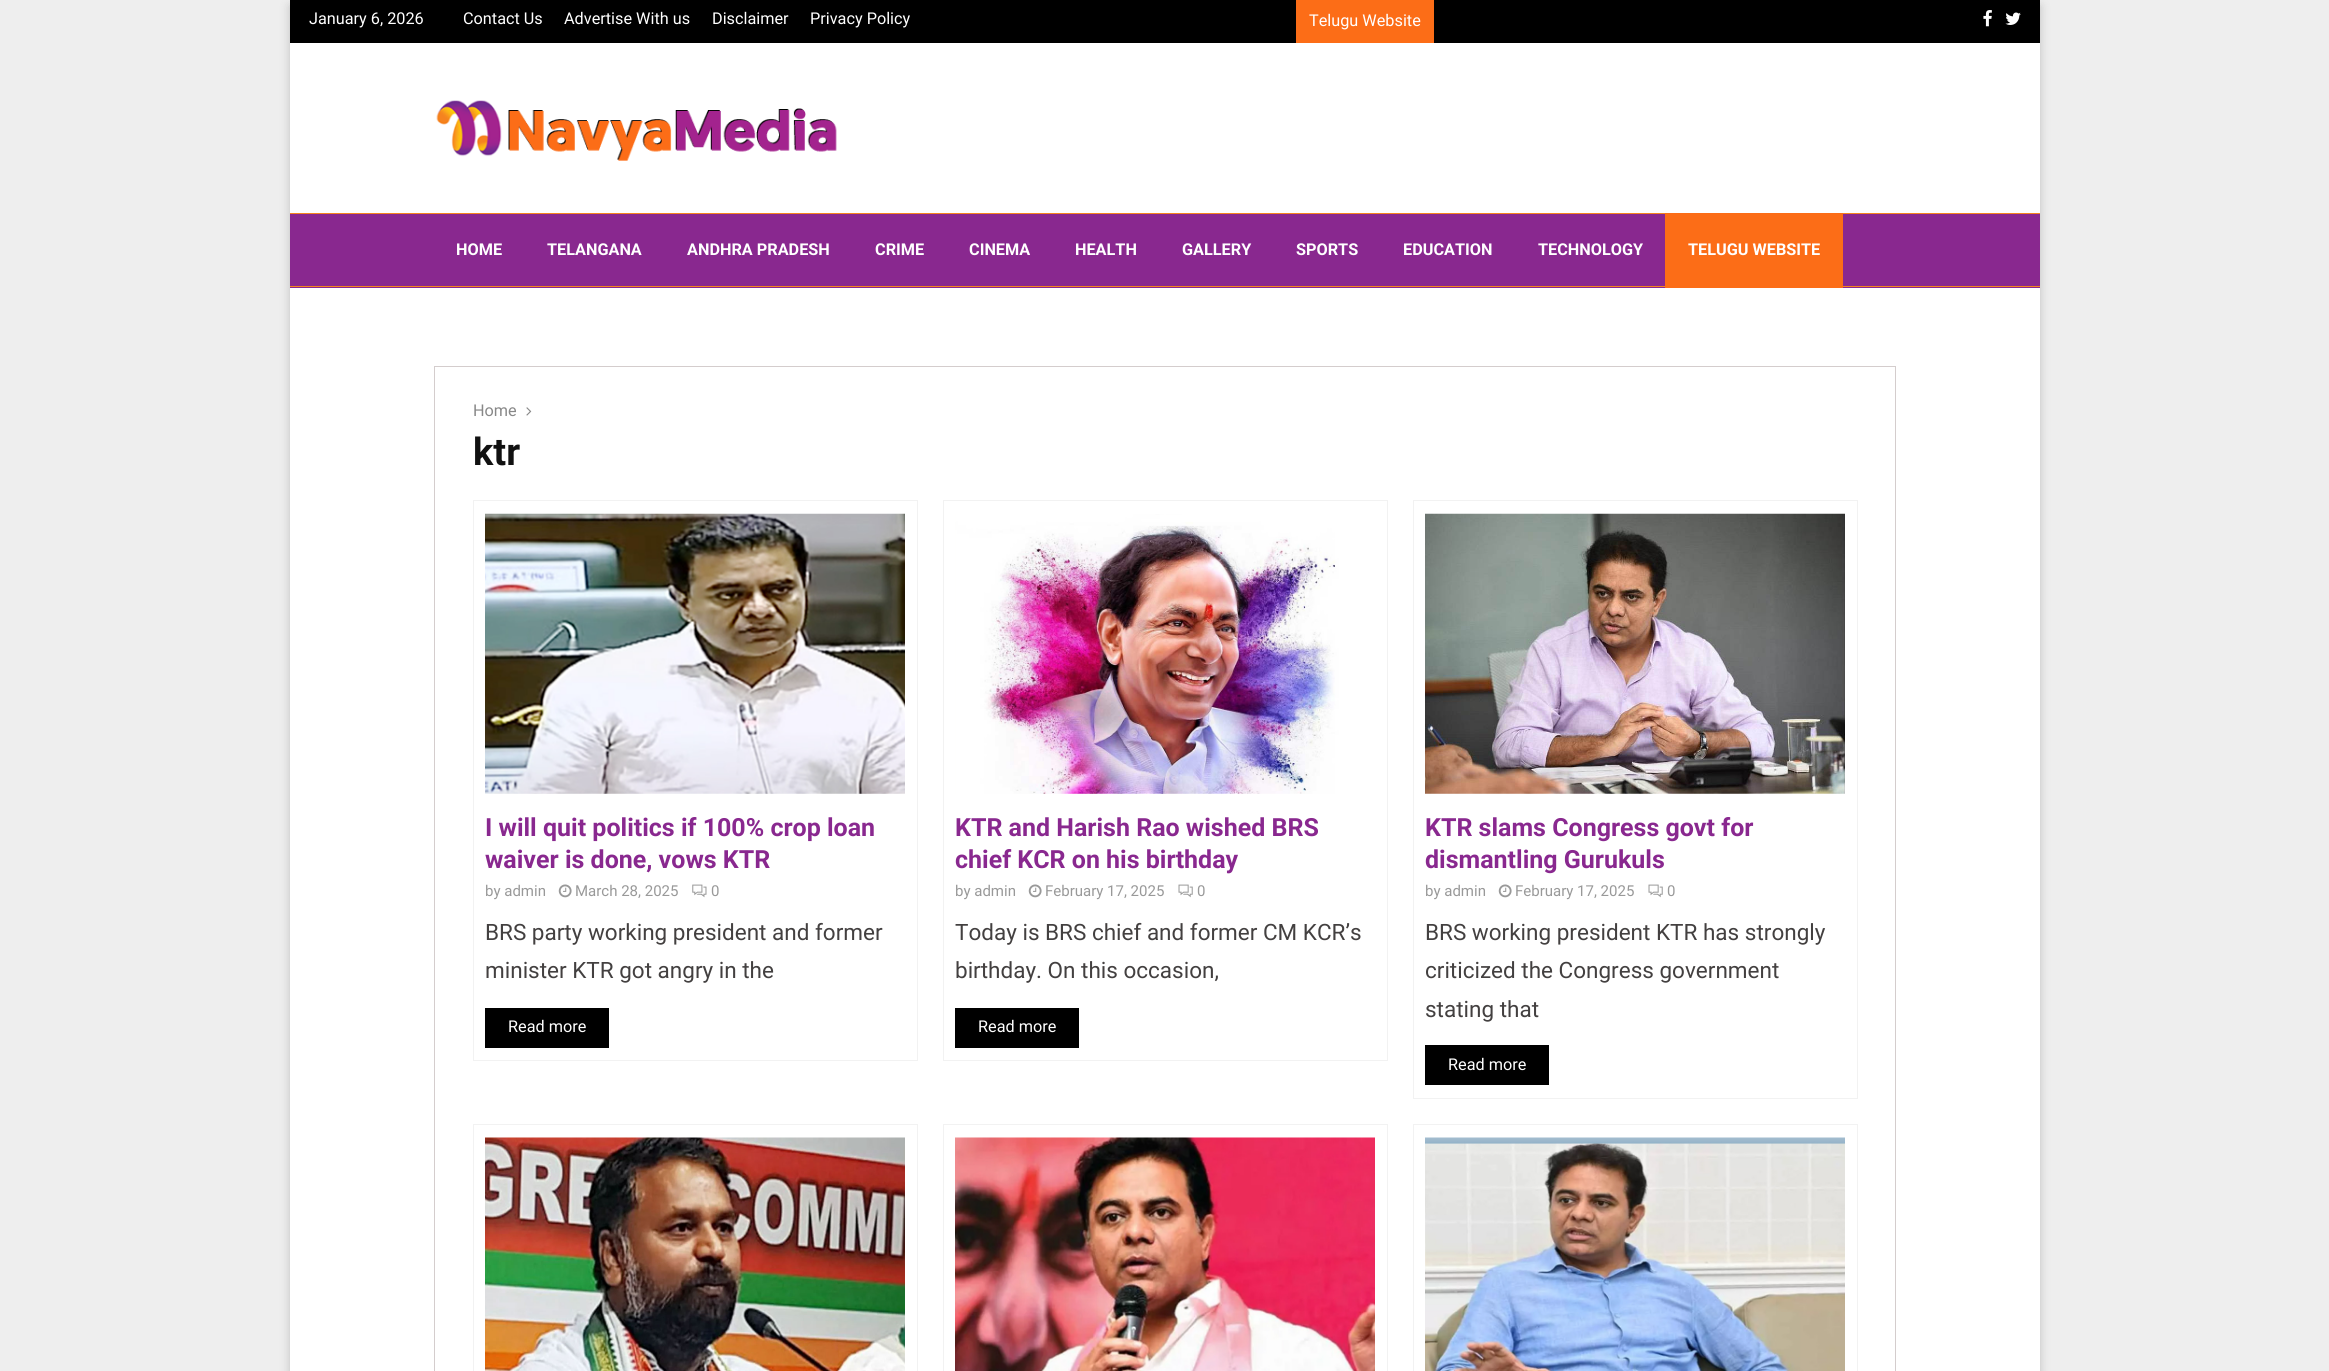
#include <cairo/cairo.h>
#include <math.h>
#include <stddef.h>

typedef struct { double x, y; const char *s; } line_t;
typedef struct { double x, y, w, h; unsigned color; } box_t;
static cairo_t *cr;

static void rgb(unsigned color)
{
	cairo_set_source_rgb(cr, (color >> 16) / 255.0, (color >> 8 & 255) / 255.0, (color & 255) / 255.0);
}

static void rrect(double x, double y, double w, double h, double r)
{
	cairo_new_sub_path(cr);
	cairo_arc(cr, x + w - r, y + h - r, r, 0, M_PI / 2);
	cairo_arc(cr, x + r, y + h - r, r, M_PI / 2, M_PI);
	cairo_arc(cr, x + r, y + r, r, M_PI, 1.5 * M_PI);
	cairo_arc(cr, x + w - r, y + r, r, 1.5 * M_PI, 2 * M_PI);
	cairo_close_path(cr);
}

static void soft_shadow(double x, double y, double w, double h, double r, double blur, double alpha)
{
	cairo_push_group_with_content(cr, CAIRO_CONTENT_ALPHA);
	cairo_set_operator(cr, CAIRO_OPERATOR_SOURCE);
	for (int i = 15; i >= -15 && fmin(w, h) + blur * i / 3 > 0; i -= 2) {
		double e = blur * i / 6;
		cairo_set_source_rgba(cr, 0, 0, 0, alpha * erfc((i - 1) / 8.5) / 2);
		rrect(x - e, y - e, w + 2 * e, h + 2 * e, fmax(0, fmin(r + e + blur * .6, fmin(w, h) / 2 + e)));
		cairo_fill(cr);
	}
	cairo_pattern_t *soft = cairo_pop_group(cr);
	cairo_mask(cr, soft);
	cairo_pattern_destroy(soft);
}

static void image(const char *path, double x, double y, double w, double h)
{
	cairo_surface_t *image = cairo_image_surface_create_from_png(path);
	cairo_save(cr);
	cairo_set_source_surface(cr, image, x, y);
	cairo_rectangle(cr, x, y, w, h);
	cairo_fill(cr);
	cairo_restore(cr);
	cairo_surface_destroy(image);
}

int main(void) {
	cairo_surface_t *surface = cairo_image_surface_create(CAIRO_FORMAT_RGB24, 2329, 1371);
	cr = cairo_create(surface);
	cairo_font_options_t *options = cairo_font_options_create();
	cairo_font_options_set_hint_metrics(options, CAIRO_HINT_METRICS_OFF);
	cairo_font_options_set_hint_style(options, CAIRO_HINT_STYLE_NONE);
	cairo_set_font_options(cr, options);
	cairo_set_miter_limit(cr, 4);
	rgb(0xeeeeee);
	cairo_paint(cr);
	rgb(0x000000);
	soft_shadow(290, 6, 1750, 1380, 0, 5, 0.2);
	{
		static const box_t items[] = {
			{290, 43, 1750, 1328, 0xffffff},
			{290, 0, 1750, 43, 0x000000},
			{1296, 0, 138, 43, 0xfc6d17},
		};
		for (size_t i = 0; i < sizeof items / sizeof *items; i++) {
			rgb(items[i].color);
			cairo_rectangle(cr, items[i].x, items[i].y, items[i].w, items[i].h);
			cairo_fill(cr);
		}
	}
	image("img/1.png", 1983, 10, 9, 17);
	image("img/2.png", 2005, 12, 16, 13);
	image("img/3.png", 436, 100, 401, 61);
	{
		static const box_t items[] = {
			{290, 214, 1750, 74, 0x89288f},
			{290, 286, 1750, 1, 0xf5831f},
			{290, 213, 1750, 1, 0xf5831f},
			{1665, 213, 178, 75, 0xfc6d17},
		};
		for (size_t i = 0; i < sizeof items / sizeof *items; i++) {
			rgb(items[i].color);
			cairo_rectangle(cr, items[i].x, items[i].y, items[i].w, items[i].h);
			cairo_fill(cr);
		}
	}
	cairo_rectangle(cr, 434.5, 366.5, 1461, 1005);
	rgb(0xd4cdcd);
	cairo_set_line_width(cr, 1);
	cairo_stroke(cr);
	image("img/4.png", 526, 407, 6, 9);
	cairo_rectangle(cr, 473.5, 500.5, 444, 560);
	rgb(0xf2f2f2);
	cairo_stroke(cr);
	image("img/5.png", 485, 513, 420, 281);
	image("img/6.png", 558, 884, 14, 14);
	image("img/7.png", 692, 884, 15, 14);
	rgb(0x000000);
	cairo_rectangle(cr, 485, 1008, 124, 40);
	cairo_fill(cr);
	cairo_rectangle(cr, 943.5, 500.5, 444, 560);
	rgb(0xf2f2f2);
	cairo_stroke(cr);
	image("img/8.png", 955, 514, 420, 280);
	image("img/6.png", 1028, 884, 14, 14);
	image("img/9.png", 1178, 884, 15, 14);
	rgb(0x000000);
	cairo_rectangle(cr, 955, 1008, 124, 40);
	cairo_fill(cr);
	cairo_rectangle(cr, 1413.5, 500.5, 444, 598);
	rgb(0xf2f2f2);
	cairo_stroke(cr);
	image("img/10.png", 1425, 513, 420, 281);
	image("img/6.png", 1498, 884, 14, 14);
	image("img/9.png", 1648, 884, 15, 14);
	rgb(0x000000);
	cairo_rectangle(cr, 1425, 1045, 124, 40);
	cairo_fill(cr);
	cairo_rectangle(cr, 473.5, 1124.5, 444, 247);
	rgb(0xf2f2f2);
	cairo_stroke(cr);
	image("img/11.png", 485, 1137, 420, 234);
	cairo_rectangle(cr, 943.5, 1124.5, 444, 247);
	cairo_stroke(cr);
	image("img/12.png", 955, 1137, 420, 234);
	cairo_rectangle(cr, 1413.5, 1124.5, 444, 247);
	cairo_stroke(cr);
	image("img/13.png", 1425, 1137, 420, 234);
	cairo_select_font_face(cr, "Roboto", CAIRO_FONT_SLANT_NORMAL, CAIRO_FONT_WEIGHT_NORMAL);
	cairo_set_font_size(cr, 16.25);
	rgb(0xffffff);
	{
		static const line_t items[] = {
			{309, 24, "January 6, 2026"},
			{463, 24, "Contact Us"},
			{564, 24, "Advertise With us"},
			{712, 24, "Disclaimer"},
			{810, 24, "Privacy Policy"},
			{1309, 26, "Telugu Website"},
		};
		for (size_t i = 0; i < sizeof items / sizeof *items; i++) {
			cairo_move_to(cr, items[i].x, items[i].y);
			cairo_show_text(cr, items[i].s);
		}
	}
	cairo_select_font_face(cr, "Roboto", CAIRO_FONT_SLANT_NORMAL, CAIRO_FONT_WEIGHT_BOLD);
	{
		static const line_t items[] = {
			{456, 255, "HOME"},
			{547, 255, "TELANGANA"},
			{687, 255, "ANDHRA PRADESH"},
			{875, 255, "CRIME"},
			{969, 255, "CINEMA"},
			{1075, 255, "HEALTH"},
			{1182, 255, "GALLERY"},
			{1296, 255, "SPORTS"},
			{1403, 255, "EDUCATION"},
			{1538, 255, "TECHNOLOGY"},
			{1688, 255, "TELUGU WEBSITE"},
		};
		for (size_t i = 0; i < sizeof items / sizeof *items; i++) {
			cairo_move_to(cr, items[i].x, items[i].y);
			cairo_show_text(cr, items[i].s);
		}
	}
	cairo_select_font_face(cr, "Roboto", CAIRO_FONT_SLANT_NORMAL, CAIRO_FONT_WEIGHT_NORMAL);
	rgb(0x888888);
	cairo_move_to(cr, 473, 416);
	cairo_show_text(cr, "Home");
	cairo_select_font_face(cr, "Roboto", CAIRO_FONT_SLANT_NORMAL, CAIRO_FONT_WEIGHT_BOLD);
	cairo_set_font_size(cr, 38);
	rgb(0x111111);
	cairo_move_to(cr, 473, 465);
	cairo_show_text(cr, "ktr");
	cairo_set_font_size(cr, 25);
	rgb(0x89288f);
	cairo_move_to(cr, 485, 836);
	cairo_show_text(cr, "I will quit politics if 100% crop loan");
	cairo_move_to(cr, 485, 868);
	cairo_show_text(cr, "waiver is done, vows KTR");
	cairo_select_font_face(cr, "Roboto", CAIRO_FONT_SLANT_NORMAL, CAIRO_FONT_WEIGHT_NORMAL);
	cairo_set_font_size(cr, 15);
	rgb(0x999999);
	{
		static const line_t items[] = {
			{485, 896, "by admin"},
			{575, 896, "March 28, 2025"},
			{711, 896, "0"},
		};
		for (size_t i = 0; i < sizeof items / sizeof *items; i++) {
			cairo_move_to(cr, items[i].x, items[i].y);
			cairo_show_text(cr, items[i].s);
		}
	}
	cairo_set_font_size(cr, 22.5);
	rgb(0x434040);
	cairo_move_to(cr, 485, 940);
	cairo_show_text(cr, "BRS party working president and former");
	cairo_move_to(cr, 485, 978);
	cairo_show_text(cr, "minister KTR got angry in the");
	cairo_set_font_size(cr, 16.25);
	rgb(0xffffff);
	cairo_move_to(cr, 508, 1032);
	cairo_show_text(cr, "Read more");
	cairo_select_font_face(cr, "Roboto", CAIRO_FONT_SLANT_NORMAL, CAIRO_FONT_WEIGHT_BOLD);
	cairo_set_font_size(cr, 25);
	rgb(0x89288f);
	cairo_move_to(cr, 955, 836);
	cairo_show_text(cr, "KTR and Harish Rao wished BRS");
	cairo_move_to(cr, 955, 868);
	cairo_show_text(cr, "chief KCR on his birthday");
	cairo_select_font_face(cr, "Roboto", CAIRO_FONT_SLANT_NORMAL, CAIRO_FONT_WEIGHT_NORMAL);
	cairo_set_font_size(cr, 15);
	rgb(0x999999);
	{
		static const line_t items[] = {
			{955, 896, "by admin"},
			{1045, 896, "February 17, 2025"},
			{1197, 896, "0"},
		};
		for (size_t i = 0; i < sizeof items / sizeof *items; i++) {
			cairo_move_to(cr, items[i].x, items[i].y);
			cairo_show_text(cr, items[i].s);
		}
	}
	cairo_set_font_size(cr, 22.5);
	rgb(0x434040);
	cairo_move_to(cr, 955, 940);
	cairo_show_text(cr, "Today is BRS chief and former CM KCR’s");
	cairo_move_to(cr, 955, 978);
	cairo_show_text(cr, "birthday. On this occasion,");
	cairo_set_font_size(cr, 16.25);
	rgb(0xffffff);
	cairo_move_to(cr, 978, 1032);
	cairo_show_text(cr, "Read more");
	cairo_select_font_face(cr, "Roboto", CAIRO_FONT_SLANT_NORMAL, CAIRO_FONT_WEIGHT_BOLD);
	cairo_set_font_size(cr, 25);
	rgb(0x89288f);
	cairo_move_to(cr, 1425, 836);
	cairo_show_text(cr, "KTR slams Congress govt for");
	cairo_move_to(cr, 1425, 868);
	cairo_show_text(cr, "dismantling Gurukuls");
	cairo_select_font_face(cr, "Roboto", CAIRO_FONT_SLANT_NORMAL, CAIRO_FONT_WEIGHT_NORMAL);
	cairo_set_font_size(cr, 15);
	rgb(0x999999);
	{
		static const line_t items[] = {
			{1425, 896, "by admin"},
			{1515, 896, "February 17, 2025"},
			{1667, 896, "0"},
		};
		for (size_t i = 0; i < sizeof items / sizeof *items; i++) {
			cairo_move_to(cr, items[i].x, items[i].y);
			cairo_show_text(cr, items[i].s);
		}
	}
	cairo_set_font_size(cr, 22.5);
	rgb(0x434040);
	{
		static const line_t items[] = {
			{1425, 940, "BRS working president KTR has strongly"},
			{1425, 978, "criticized the Congress government"},
			{1425, 1017, "stating that"},
		};
		for (size_t i = 0; i < sizeof items / sizeof *items; i++) {
			cairo_move_to(cr, items[i].x, items[i].y);
			cairo_show_text(cr, items[i].s);
		}
	}
	cairo_set_font_size(cr, 16.25);
	rgb(0xffffff);
	cairo_move_to(cr, 1448, 1070);
	cairo_show_text(cr, "Read more");
	cairo_surface_write_to_png(surface, "page.png");
	cairo_font_options_destroy(options);
	cairo_destroy(cr);
	cairo_surface_destroy(surface);
	return 0;
}
